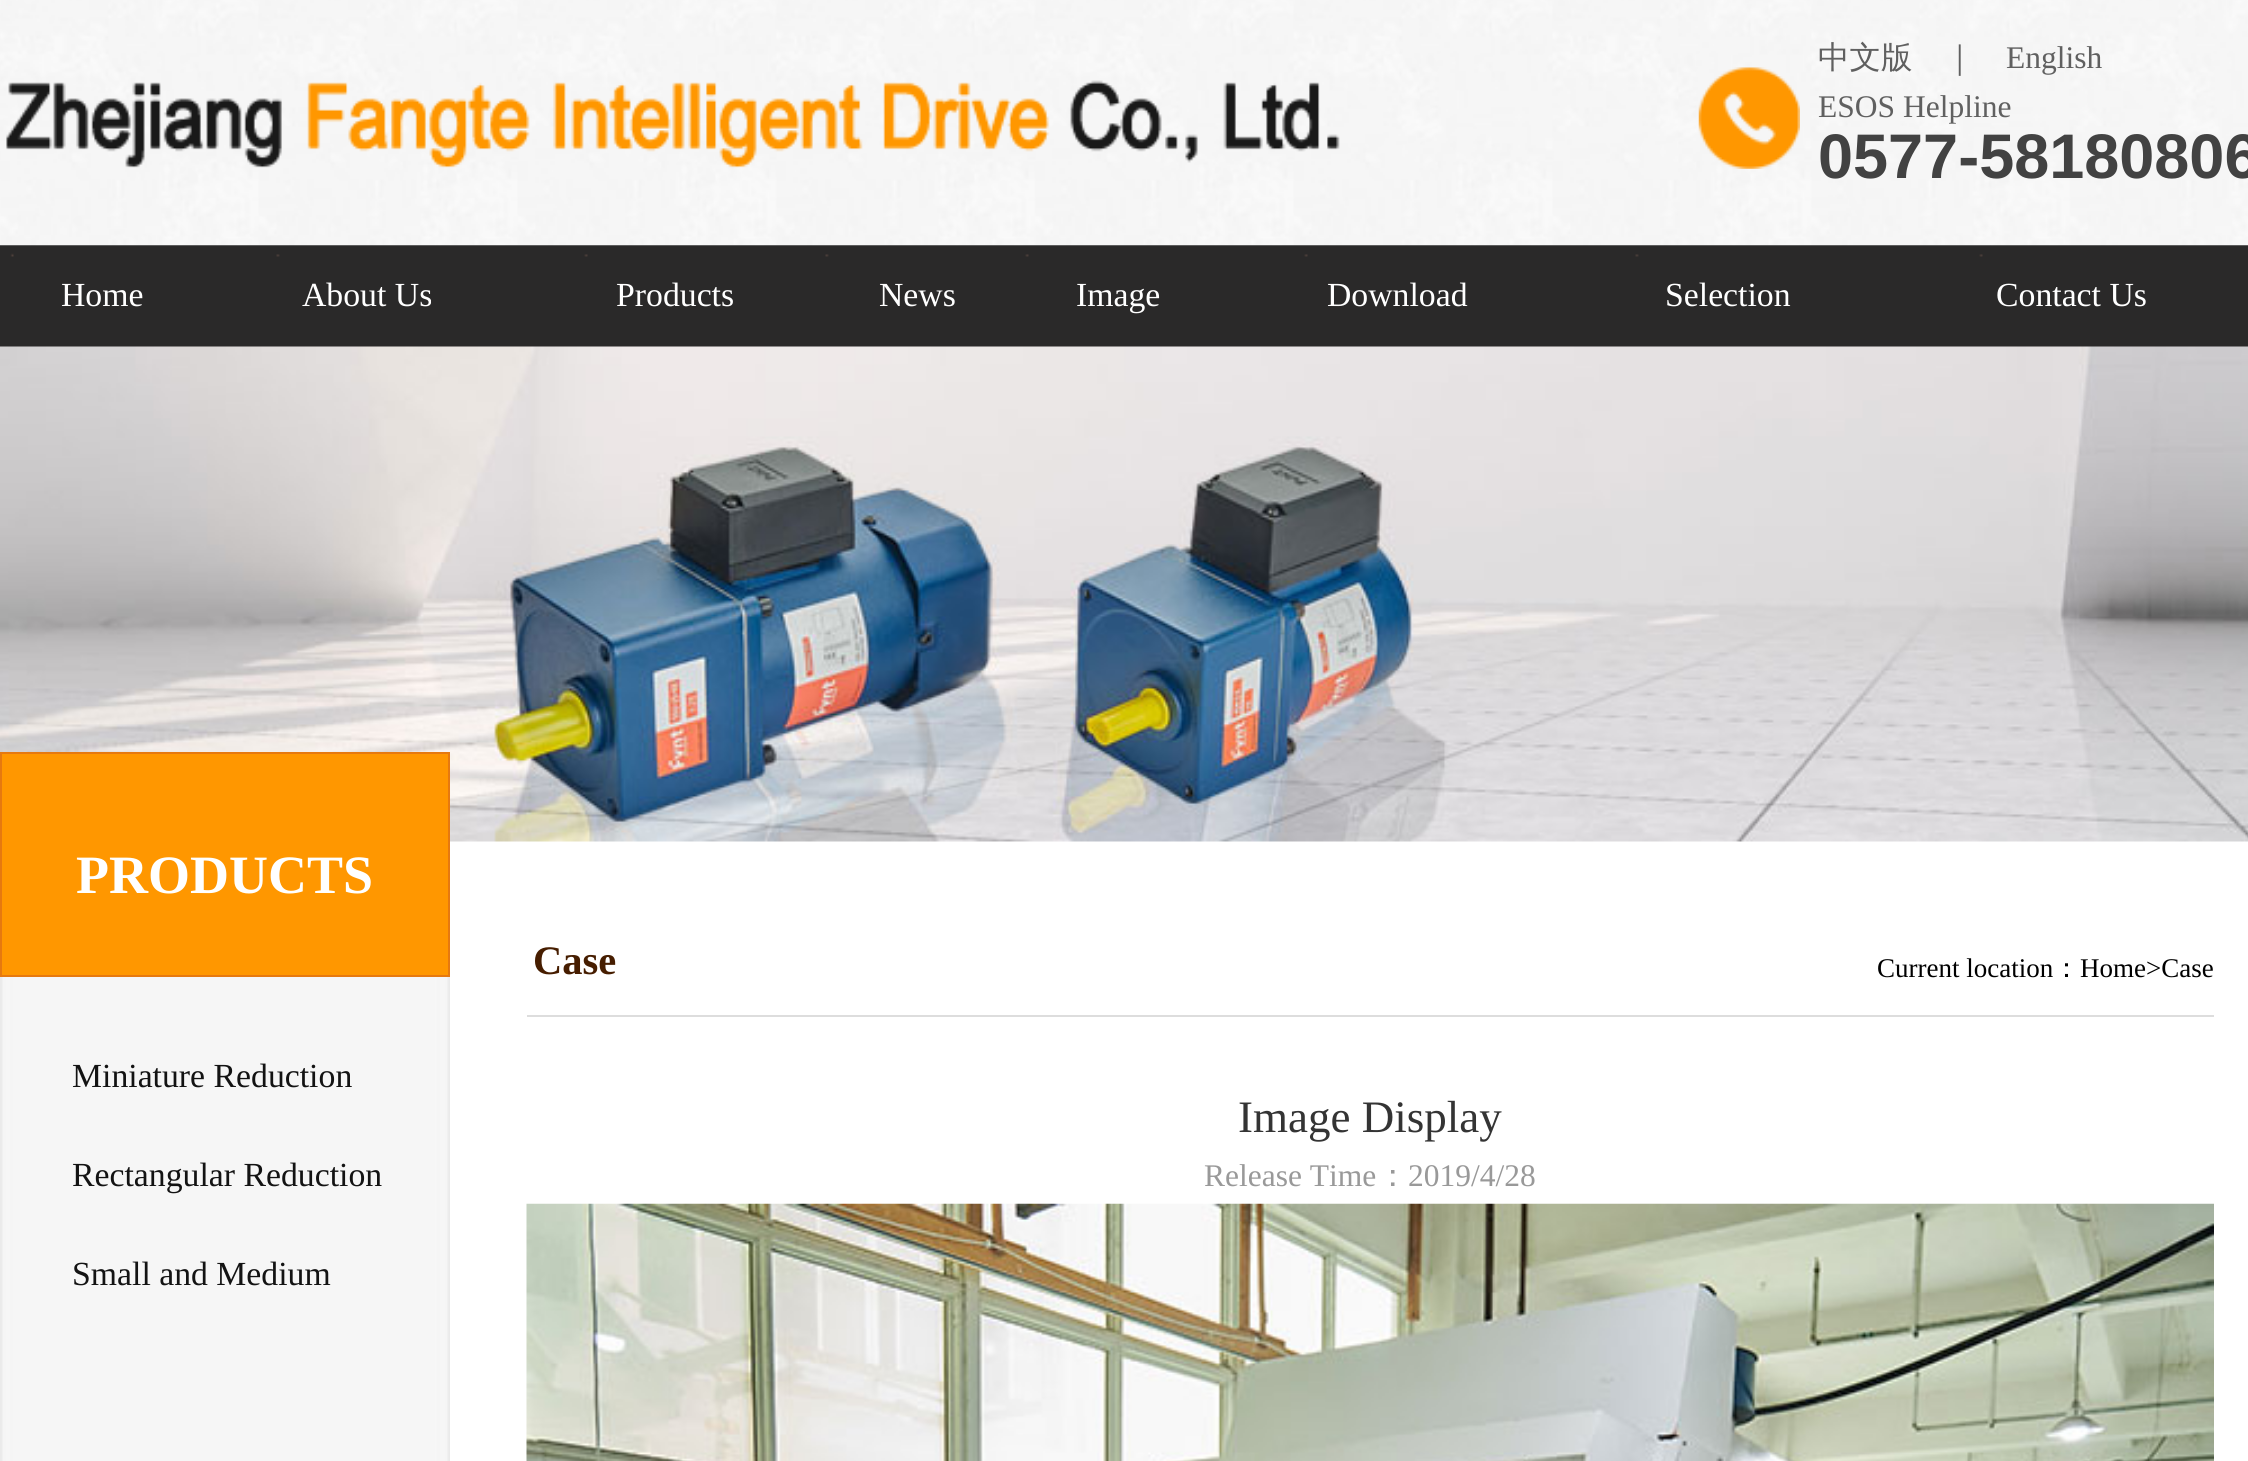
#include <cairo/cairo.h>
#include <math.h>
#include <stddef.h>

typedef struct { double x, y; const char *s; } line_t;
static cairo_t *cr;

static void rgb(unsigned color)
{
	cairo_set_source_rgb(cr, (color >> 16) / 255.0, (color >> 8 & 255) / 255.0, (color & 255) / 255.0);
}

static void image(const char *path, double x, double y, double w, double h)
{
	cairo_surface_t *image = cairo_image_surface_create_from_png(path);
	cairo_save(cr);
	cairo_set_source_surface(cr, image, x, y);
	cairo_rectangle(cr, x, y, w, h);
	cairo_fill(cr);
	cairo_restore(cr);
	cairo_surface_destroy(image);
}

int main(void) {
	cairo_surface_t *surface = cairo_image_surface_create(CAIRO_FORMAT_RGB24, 2248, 1461);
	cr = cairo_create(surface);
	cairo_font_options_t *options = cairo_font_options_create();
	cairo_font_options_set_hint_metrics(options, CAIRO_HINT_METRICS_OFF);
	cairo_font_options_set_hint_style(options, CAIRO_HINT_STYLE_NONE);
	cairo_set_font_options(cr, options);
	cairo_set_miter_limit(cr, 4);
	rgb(0xffffff);
	cairo_paint(cr);
	rgb(0x2a2929);
	cairo_rectangle(cr, 0, 245, 2248, 102);
	cairo_fill(cr);
	image("img/1.png", 0, 0, 2248, 246);
	image("img/2.png", 6, 80, 1334, 88);
	image("img/3.png", 1698, 67, 102, 102);
	image("img/4.png", 10, 253, 4, 4);
	image("img/5.png", 276, 254, 4, 3);
	image("img/6.png", 584, 254, 4, 3);
	image("img/7.png", 825, 254, 4, 3);
	image("img/6.png", 1025, 254, 4, 3);
	image("img/6.png", 1304, 254, 4, 3);
	image("img/5.png", 1635, 254, 4, 3);
	image("img/6.png", 1979, 254, 4, 3);
	image("img/8.png", 0, 346, 2248, 496);
	image("img/9.png", 0, 977, 450, 484);
	rgb(0xff9700);
	cairo_rectangle(cr, 1, 753, 448, 223);
	cairo_fill_preserve(cr);
	rgb(0xe6790f);
	cairo_stroke(cr);
	rgb(0xdddddd);
	cairo_rectangle(cr, 527, 1015, 1687, 2);
	cairo_fill(cr);
	image("img/10.png", 526, 1203, 1688, 258);
	cairo_select_font_face(cr, "WenQuanYi Zen Hei Medium", CAIRO_FONT_SLANT_NORMAL, CAIRO_FONT_WEIGHT_NORMAL);
	cairo_set_font_size(cr, 31.5);
	rgb(0x606060);
	cairo_move_to(cr, 1818, 68);
	cairo_show_text(cr, "中文版");
	cairo_move_to(cr, 1944, 68);
	cairo_show_text(cr, "｜");
	cairo_select_font_face(cr, "Liberation Serif", CAIRO_FONT_SLANT_NORMAL, CAIRO_FONT_WEIGHT_NORMAL);
	cairo_move_to(cr, 2006, 68);
	cairo_show_text(cr, "English");
	cairo_move_to(cr, 1818, 117);
	cairo_show_text(cr, "ESOS Helpline");
	cairo_select_font_face(cr, "Liberation Sans", CAIRO_FONT_SLANT_NORMAL, CAIRO_FONT_WEIGHT_BOLD);
	cairo_set_font_size(cr, 63);
	rgb(0x424242);
	cairo_move_to(cr, 1818, 178);
	cairo_show_text(cr, "0577-58180806");
	cairo_select_font_face(cr, "Liberation Serif", CAIRO_FONT_SLANT_NORMAL, CAIRO_FONT_WEIGHT_NORMAL);
	cairo_set_font_size(cr, 33.75);
	rgb(0xffffff);
	{
		static const line_t items[] = {
			{61, 306, "Home"},
			{302, 306, "About Us"},
			{616, 306, "Products"},
			{879, 306, "News"},
			{1076, 306, "Image"},
			{1327, 306, "Download"},
			{1665, 306, "Selection"},
			{1996, 306, "Contact Us"},
		};
		for (size_t i = 0; i < sizeof items / sizeof *items; i++) {
			cairo_move_to(cr, items[i].x, items[i].y);
			cairo_show_text(cr, items[i].s);
		}
	}
	cairo_select_font_face(cr, "Liberation Serif", CAIRO_FONT_SLANT_NORMAL, CAIRO_FONT_WEIGHT_BOLD);
	cairo_set_font_size(cr, 54);
	cairo_move_to(cr, 76, 893);
	cairo_show_text(cr, "PRODUCTS");
	cairo_select_font_face(cr, "Liberation Serif", CAIRO_FONT_SLANT_NORMAL, CAIRO_FONT_WEIGHT_NORMAL);
	cairo_set_font_size(cr, 33.75);
	rgb(0x131313);
	{
		static const line_t items[] = {
			{72, 1087, "Miniature Reduction"},
			{72, 1186, "Rectangular Reduction"},
			{72, 1285, "Small and Medium"},
		};
		for (size_t i = 0; i < sizeof items / sizeof *items; i++) {
			cairo_move_to(cr, items[i].x, items[i].y);
			cairo_show_text(cr, items[i].s);
		}
	}
	cairo_select_font_face(cr, "Liberation Serif", CAIRO_FONT_SLANT_NORMAL, CAIRO_FONT_WEIGHT_BOLD);
	cairo_set_font_size(cr, 40.5);
	rgb(0x461d00);
	cairo_move_to(cr, 533, 974);
	cairo_show_text(cr, "Case");
	cairo_select_font_face(cr, "Liberation Serif", CAIRO_FONT_SLANT_NORMAL, CAIRO_FONT_WEIGHT_NORMAL);
	cairo_set_font_size(cr, 27);
	rgb(0x000000);
	cairo_move_to(cr, 1877, 977);
	cairo_show_text(cr, "Current location");
	cairo_select_font_face(cr, "WenQuanYi Zen Hei Medium", CAIRO_FONT_SLANT_NORMAL, CAIRO_FONT_WEIGHT_NORMAL);
	cairo_move_to(cr, 2053, 977);
	cairo_show_text(cr, "：");
	cairo_select_font_face(cr, "Liberation Serif", CAIRO_FONT_SLANT_NORMAL, CAIRO_FONT_WEIGHT_NORMAL);
	cairo_move_to(cr, 2080, 977);
	cairo_show_text(cr, "Home>Case");
	cairo_set_font_size(cr, 45);
	rgb(0x343434);
	cairo_move_to(cr, 1238, 1132);
	cairo_show_text(cr, "Image Display");
	cairo_set_font_size(cr, 31.5);
	rgb(0x999999);
	cairo_move_to(cr, 1204, 1186);
	cairo_show_text(cr, "Release Time");
	cairo_select_font_face(cr, "WenQuanYi Zen Hei Medium", CAIRO_FONT_SLANT_NORMAL, CAIRO_FONT_WEIGHT_NORMAL);
	cairo_move_to(cr, 1377, 1186);
	cairo_show_text(cr, "：");
	cairo_select_font_face(cr, "Liberation Serif", CAIRO_FONT_SLANT_NORMAL, CAIRO_FONT_WEIGHT_NORMAL);
	cairo_move_to(cr, 1408, 1186);
	cairo_show_text(cr, "2019/4/28");
	cairo_surface_write_to_png(surface, "page.png");
	cairo_font_options_destroy(options);
	cairo_destroy(cr);
	cairo_surface_destroy(surface);
	return 0;
}
